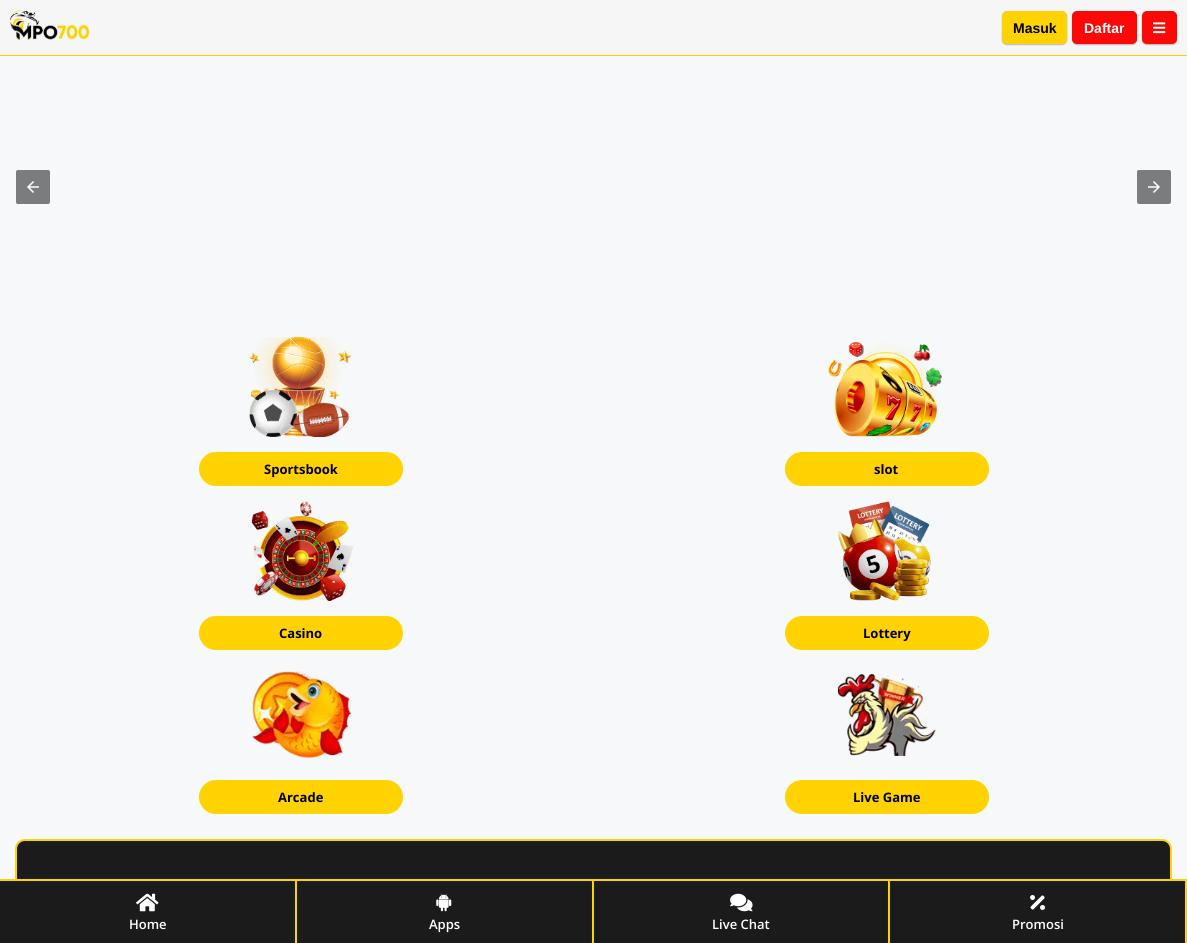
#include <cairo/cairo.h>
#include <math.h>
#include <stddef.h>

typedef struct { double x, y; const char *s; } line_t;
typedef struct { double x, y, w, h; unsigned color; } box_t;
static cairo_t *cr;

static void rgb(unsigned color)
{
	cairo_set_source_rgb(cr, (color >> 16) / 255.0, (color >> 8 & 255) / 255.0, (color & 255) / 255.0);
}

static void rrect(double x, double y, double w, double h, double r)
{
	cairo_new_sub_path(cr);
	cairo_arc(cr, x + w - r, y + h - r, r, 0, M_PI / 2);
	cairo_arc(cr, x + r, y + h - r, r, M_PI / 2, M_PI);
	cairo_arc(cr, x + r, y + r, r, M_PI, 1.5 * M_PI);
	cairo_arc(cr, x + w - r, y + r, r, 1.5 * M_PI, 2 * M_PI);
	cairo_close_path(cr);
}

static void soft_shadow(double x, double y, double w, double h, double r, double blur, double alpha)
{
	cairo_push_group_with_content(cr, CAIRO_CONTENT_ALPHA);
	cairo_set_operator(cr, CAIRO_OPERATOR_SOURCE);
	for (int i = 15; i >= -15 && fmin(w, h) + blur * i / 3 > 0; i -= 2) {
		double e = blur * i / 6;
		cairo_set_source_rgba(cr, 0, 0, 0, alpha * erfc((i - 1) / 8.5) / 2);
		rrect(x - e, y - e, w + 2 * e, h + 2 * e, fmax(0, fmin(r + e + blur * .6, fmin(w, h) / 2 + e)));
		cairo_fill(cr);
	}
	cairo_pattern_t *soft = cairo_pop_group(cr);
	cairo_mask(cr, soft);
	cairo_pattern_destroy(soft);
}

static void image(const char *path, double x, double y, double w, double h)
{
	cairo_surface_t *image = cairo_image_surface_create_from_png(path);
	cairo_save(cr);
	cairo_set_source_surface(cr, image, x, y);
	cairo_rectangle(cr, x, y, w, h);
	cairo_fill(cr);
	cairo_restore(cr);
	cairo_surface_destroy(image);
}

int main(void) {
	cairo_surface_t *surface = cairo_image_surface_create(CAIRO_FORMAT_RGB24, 1187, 943);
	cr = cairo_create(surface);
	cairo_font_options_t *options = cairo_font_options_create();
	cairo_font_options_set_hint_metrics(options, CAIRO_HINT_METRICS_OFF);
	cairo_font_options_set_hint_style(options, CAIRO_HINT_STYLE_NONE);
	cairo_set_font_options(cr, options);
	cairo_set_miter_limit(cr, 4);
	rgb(0xf6f8f9);
	cairo_paint(cr);
	rgb(0xf6f6f6);
	cairo_rectangle(cr, 0, 0, 1187, 55);
	cairo_fill(cr);
	rgb(0xffd200);
	cairo_rectangle(cr, 0, 55, 1187, 1);
	cairo_fill(cr);
	image("img/1.png", 10, 10, 80, 30);
	rgb(0x000000);
	soft_shadow(1002, 12, 65, 33, 5, 0.5, 0.25);
	rgb(0xffd200);
	rrect(1002.5, 11.5, 64, 32, 4.5);
	cairo_fill_preserve(cr);
	cairo_set_line_width(cr, 1);
	cairo_stroke(cr);
	rgb(0x000000);
	soft_shadow(1072, 12, 65, 33, 5, 0.5, 0.25);
	rgb(0xfd0707);
	rrect(1072.5, 11.5, 64, 32, 4.5);
	cairo_fill_preserve(cr);
	cairo_stroke(cr);
	rgb(0x000000);
	soft_shadow(1142, 12, 35, 33, 5, 0.5, 0.25);
	rgb(0xfd0707);
	rrect(1142, 11, 35, 33, 5);
	cairo_fill(cr);
	image("img/2.png", 1153, 22, 13, 12);
	rgb(0x7b7c7d);
	rrect(16, 170, 34, 34, 2);
	cairo_fill(cr);
	image("img/3.png", 27, 181, 12, 12);
	rrect(1137, 170, 34, 34, 2);
	cairo_fill(cr);
	image("img/4.png", 1148, 181, 12, 12);
	image("img/5.png", 249, 337, 103, 100);
	rgb(0xffd200);
	rrect(199, 452, 204, 34, 17);
	cairo_fill(cr);
	image("img/6.png", 828, 342, 114, 95);
	rrect(785, 452, 204, 34, 17);
	cairo_fill(cr);
	image("img/7.png", 251, 501, 103, 100);
	rrect(199, 616, 204, 34, 17);
	cairo_fill(cr);
	image("img/8.png", 838, 501, 93, 100);
	rrect(785, 616, 204, 34, 17);
	cairo_fill(cr);
	image("img/9.png", 252, 671, 99, 87);
	rrect(199, 780, 204, 34, 17);
	cairo_fill(cr);
	image("img/10.png", 837, 674, 99, 82);
	rrect(785, 780, 204, 34, 17);
	cairo_fill(cr);
	rgb(0x1b1b1b);
	rrect(16, 840, 1155, 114, 9);
	cairo_fill_preserve(cr);
	rgb(0xffd200);
	cairo_set_line_width(cr, 2);
	cairo_stroke(cr);
	{
		static const box_t items[] = {
			{0, 881, 1185, 62, 0x1b1b1b},
			{0, 879, 1187, 2, 0xffd200},
			{295, 881, 2, 62, 0xffd200},
		};
		for (size_t i = 0; i < sizeof items / sizeof *items; i++) {
			rgb(items[i].color);
			cairo_rectangle(cr, items[i].x, items[i].y, items[i].w, items[i].h);
			cairo_fill(cr);
		}
	}
	image("img/11.png", 136, 893, 23, 19);
	cairo_rectangle(cr, 592, 881, 2, 62);
	cairo_fill(cr);
	image("img/12.png", 436, 893, 16, 19);
	cairo_rectangle(cr, 888, 881, 2, 62);
	cairo_fill(cr);
	image("img/13.png", 730, 893, 23, 19);
	cairo_rectangle(cr, 1185, 881, 2, 62);
	cairo_fill(cr);
	image("img/14.png", 1030, 895, 15, 15);
	cairo_select_font_face(cr, "Liberation Sans", CAIRO_FONT_SLANT_NORMAL, CAIRO_FONT_WEIGHT_BOLD);
	cairo_set_font_size(cr, 14);
	rgb(0x000000);
	cairo_move_to(cr, 1013, 33);
	cairo_show_text(cr, "Masuk");
	rgb(0xffffff);
	cairo_move_to(cr, 1084, 33);
	cairo_show_text(cr, "Daftar");
	cairo_select_font_face(cr, "Open Sans", CAIRO_FONT_SLANT_NORMAL, CAIRO_FONT_WEIGHT_BOLD);
	cairo_set_font_size(cr, 13);
	rgb(0x000000);
	{
		static const line_t items[] = {
			{264, 474, "Sportsbook"},
			{874, 474, "slot"},
			{279, 638, "Casino"},
			{863, 638, "Lottery"},
			{278, 802, "Arcade"},
			{853, 802, "Live Game"},
		};
		for (size_t i = 0; i < sizeof items / sizeof *items; i++) {
			cairo_move_to(cr, items[i].x, items[i].y);
			cairo_show_text(cr, items[i].s);
		}
	}
	cairo_select_font_face(cr, "Open Sans SemiBold", CAIRO_FONT_SLANT_NORMAL, CAIRO_FONT_WEIGHT_NORMAL);
	rgb(0xffffff);
	{
		static const line_t items[] = {
			{129, 929, "Home"},
			{429, 929, "Apps"},
			{712, 929, "Live Chat"},
			{1012, 929, "Promosi"},
		};
		for (size_t i = 0; i < sizeof items / sizeof *items; i++) {
			cairo_move_to(cr, items[i].x, items[i].y);
			cairo_show_text(cr, items[i].s);
		}
	}
	cairo_surface_write_to_png(surface, "page.png");
	cairo_font_options_destroy(options);
	cairo_destroy(cr);
	cairo_surface_destroy(surface);
	return 0;
}
